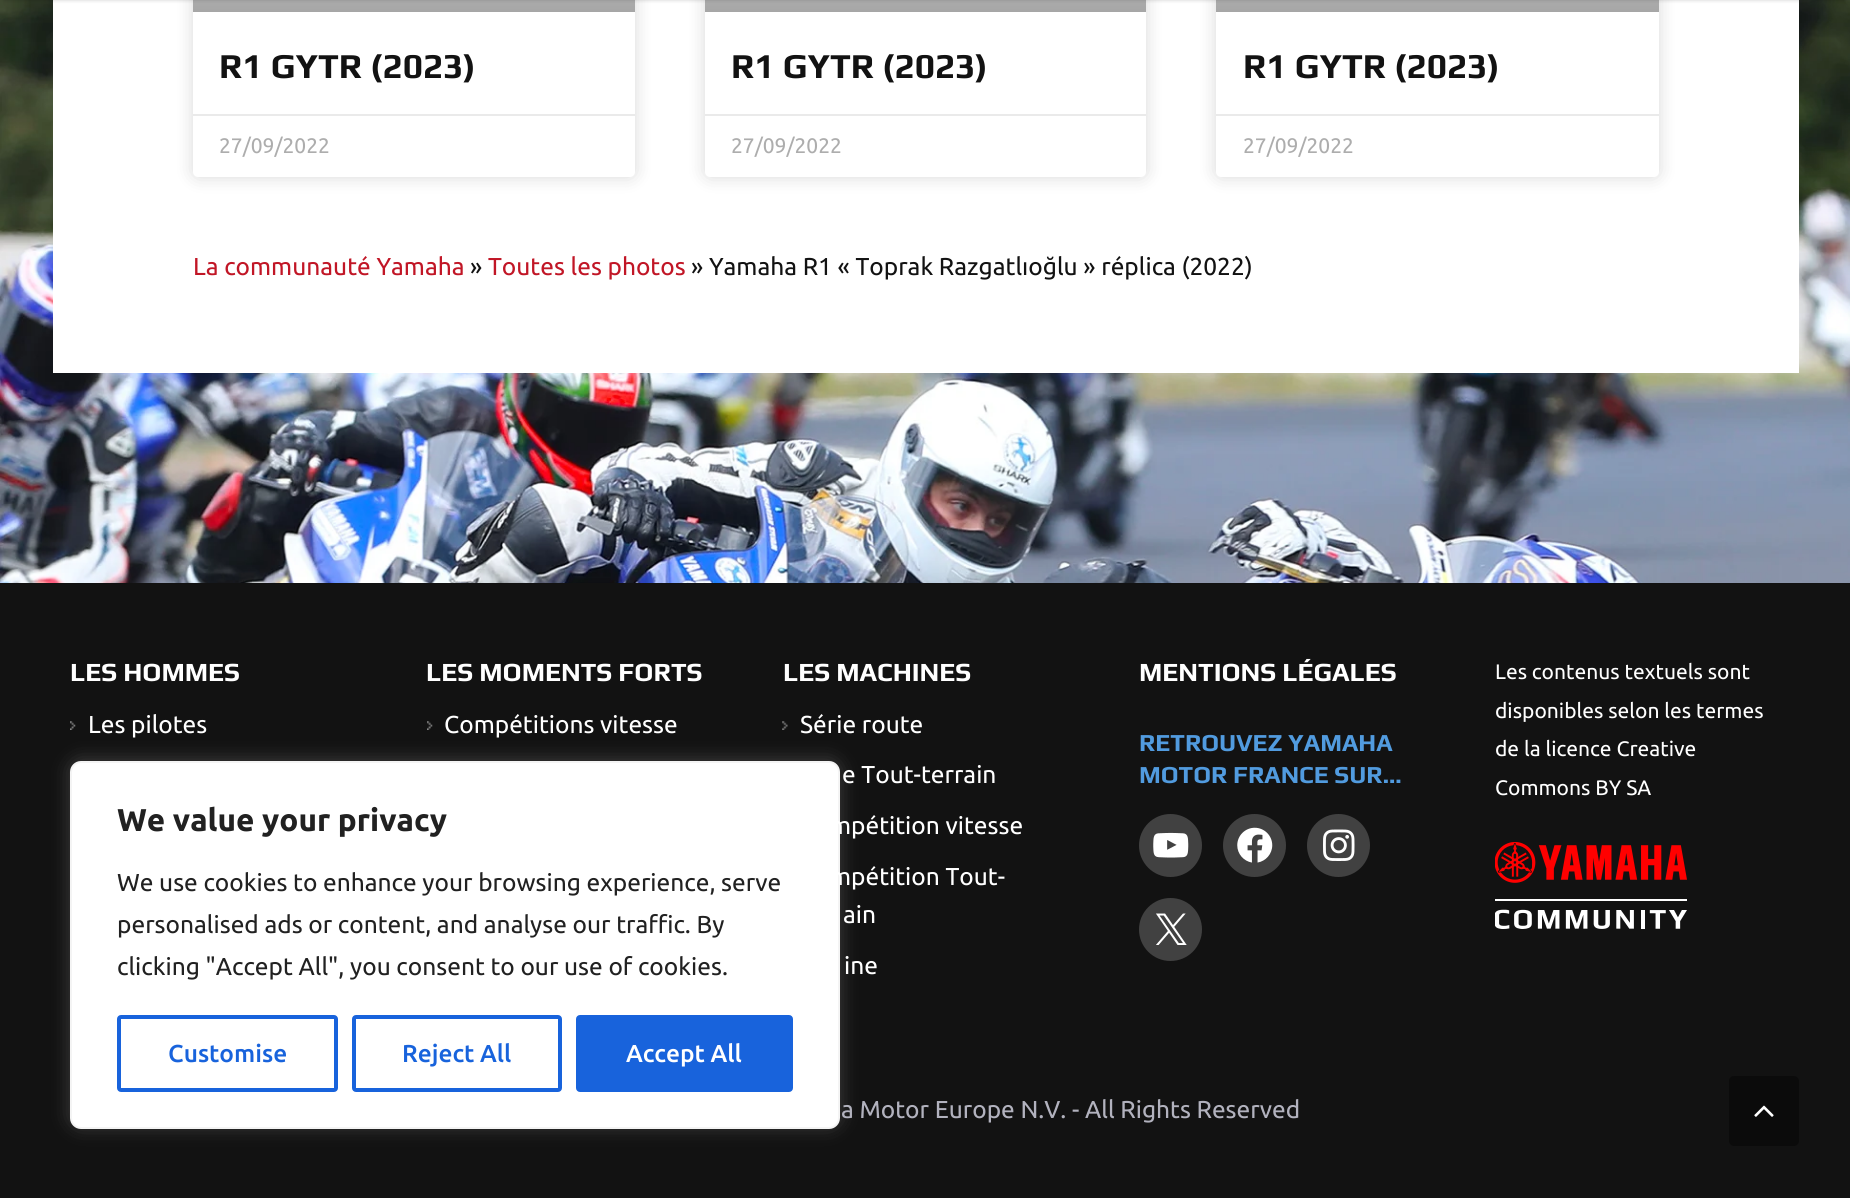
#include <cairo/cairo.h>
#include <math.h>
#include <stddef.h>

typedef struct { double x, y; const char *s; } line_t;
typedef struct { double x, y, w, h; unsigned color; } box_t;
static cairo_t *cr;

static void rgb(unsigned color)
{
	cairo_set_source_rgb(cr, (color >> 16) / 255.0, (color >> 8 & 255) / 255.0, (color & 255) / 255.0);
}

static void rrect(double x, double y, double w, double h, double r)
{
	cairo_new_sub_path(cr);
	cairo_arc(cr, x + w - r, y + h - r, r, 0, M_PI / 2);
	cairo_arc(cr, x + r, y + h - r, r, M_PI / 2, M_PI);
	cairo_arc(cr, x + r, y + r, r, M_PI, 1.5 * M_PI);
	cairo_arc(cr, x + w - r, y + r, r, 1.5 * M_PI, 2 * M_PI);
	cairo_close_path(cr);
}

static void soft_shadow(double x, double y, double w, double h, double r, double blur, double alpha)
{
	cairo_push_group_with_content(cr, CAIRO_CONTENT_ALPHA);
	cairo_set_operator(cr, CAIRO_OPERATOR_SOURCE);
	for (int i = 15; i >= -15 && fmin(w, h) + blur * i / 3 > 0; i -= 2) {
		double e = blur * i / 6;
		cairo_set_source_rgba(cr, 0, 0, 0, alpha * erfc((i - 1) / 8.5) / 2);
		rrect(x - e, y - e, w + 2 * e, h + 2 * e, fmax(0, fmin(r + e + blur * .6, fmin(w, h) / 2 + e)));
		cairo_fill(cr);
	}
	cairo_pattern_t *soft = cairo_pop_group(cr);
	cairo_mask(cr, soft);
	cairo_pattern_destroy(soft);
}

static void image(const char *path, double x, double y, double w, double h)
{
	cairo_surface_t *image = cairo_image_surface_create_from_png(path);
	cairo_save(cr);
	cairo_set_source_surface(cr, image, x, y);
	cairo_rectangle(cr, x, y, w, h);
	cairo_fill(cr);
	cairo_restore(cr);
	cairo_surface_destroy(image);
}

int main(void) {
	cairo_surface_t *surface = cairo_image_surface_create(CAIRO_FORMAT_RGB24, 1850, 1198);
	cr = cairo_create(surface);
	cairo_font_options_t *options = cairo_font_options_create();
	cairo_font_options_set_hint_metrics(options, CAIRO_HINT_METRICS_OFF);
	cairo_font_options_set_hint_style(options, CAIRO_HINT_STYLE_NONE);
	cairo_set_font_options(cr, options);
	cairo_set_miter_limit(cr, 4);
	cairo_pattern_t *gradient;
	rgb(0xffffff);
	cairo_paint(cr);
	image("img/1.png", 0, 0, 1850, 583);
	rgb(0xffffff);
	cairo_rectangle(cr, 53, 0, 1746, 373);
	cairo_fill(cr);
	rgb(0x000000);
	soft_shadow(193, -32, 442, 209, 5, 9, 0.15);
	rgb(0xffffff);
	rrect(193, -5, 442, 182, 5);
	cairo_fill(cr);
	gradient = cairo_pattern_create_linear(414, 12, 414, -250);
	cairo_pattern_add_color_stop_rgba(gradient, 0, 0.651, 0.651, 0.651, 1);
	cairo_pattern_add_color_stop_rgba(gradient, 0.75, 1, 1, 1, 1);
	cairo_set_source(cr, gradient);
	cairo_pattern_destroy(gradient);
	cairo_rectangle(cr, 193, 0, 442, 12);
	cairo_fill(cr);
	rgb(0x000000);
	soft_shadow(705, -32, 441, 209, 5, 9, 0.15);
	rgb(0xffffff);
	rrect(705, -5, 441, 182, 5);
	cairo_fill(cr);
	gradient = cairo_pattern_create_linear(926, 12, 926, -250);
	cairo_pattern_add_color_stop_rgba(gradient, 0, 0.651, 0.651, 0.651, 1);
	cairo_pattern_add_color_stop_rgba(gradient, 0.75, 1, 1, 1, 1);
	cairo_set_source(cr, gradient);
	cairo_pattern_destroy(gradient);
	cairo_rectangle(cr, 705, 0, 441, 12);
	cairo_fill(cr);
	rgb(0x000000);
	soft_shadow(1216, -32, 443, 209, 5, 9, 0.15);
	rgb(0xffffff);
	rrect(1216, -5, 443, 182, 5);
	cairo_fill(cr);
	gradient = cairo_pattern_create_linear(1438, 12, 1438, -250);
	cairo_pattern_add_color_stop_rgba(gradient, 0, 0.651, 0.651, 0.651, 1);
	cairo_pattern_add_color_stop_rgba(gradient, 0.75, 1, 1, 1, 1);
	cairo_set_source(cr, gradient);
	cairo_pattern_destroy(gradient);
	cairo_rectangle(cr, 1216, 0, 443, 12);
	cairo_fill(cr);
	rgb(0x000000);
	soft_shadow(4, -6, 1844, 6, 0, 2, 0.2);
	{
		static const box_t items[] = {
			{193, 114, 442, 2, 0xeaeaea},
			{705, 114, 441, 2, 0xeaeaea},
			{1216, 114, 443, 2, 0xeaeaea},
			{0, 583, 1850, 615, 0x121212},
		};
		for (size_t i = 0; i < sizeof items / sizeof *items; i++) {
			rgb(items[i].color);
			cairo_rectangle(cr, items[i].x, items[i].y, items[i].w, items[i].h);
			cairo_fill(cr);
		}
	}
	image("img/2.png", 70, 721, 6, 9);
	image("img/3.png", 427, 721, 6, 9);
	image("img/4.png", 782, 721, 6, 9);
	rgb(0x414141);
	cairo_arc(cr, 1170.5, 845.5, 31.5, 0, 2 * M_PI);
	cairo_fill(cr);
	image("img/5.png", 1153, 832, 36, 26);
	cairo_arc(cr, 1254.5, 845.5, 31.5, 0, 2 * M_PI);
	cairo_fill(cr);
	image("img/6.png", 1237, 827, 36, 36);
	cairo_arc(cr, 1338.5, 845.5, 31.5, 0, 2 * M_PI);
	cairo_fill(cr);
	image("img/7.png", 1323, 829, 32, 32);
	cairo_arc(cr, 1170.5, 929.5, 31.5, 0, 2 * M_PI);
	cairo_fill(cr);
	image("img/8.png", 1156, 913, 31, 32);
	image("img/9.png", 1495, 842, 192, 87);
	rgb(0xacabab);
	soft_shadow(70, 760, 770, 367, 11, 9, 0.3);
	rgb(0xffffff);
	rrect(71, 762, 768, 366, 10);
	cairo_fill_preserve(cr);
	rgb(0xf4f4f4);
	cairo_stroke(cr);
	rrect(119, 1017, 217, 73, 2);
	rgb(0x1863dc);
	cairo_set_line_width(cr, 4);
	cairo_stroke(cr);
	rrect(354, 1017, 206, 73, 2);
	cairo_stroke(cr);
	rrect(578, 1017, 213, 73, 2);
	cairo_fill_preserve(cr);
	cairo_stroke(cr);
	rgb(0x0b0b0b);
	rrect(1729, 1076, 70, 70, 5);
	cairo_fill(cr);
	image("img/10.png", 1754, 1105, 20, 12);
	cairo_select_font_face(cr, "Play", CAIRO_FONT_SLANT_NORMAL, CAIRO_FONT_WEIGHT_BOLD);
	cairo_set_font_size(cr, 35);
	rgb(0x121212);
	cairo_move_to(cr, 219, 78);
	cairo_show_text(cr, "R1 GYTR (2023)");
	cairo_select_font_face(cr, "Ubuntu", CAIRO_FONT_SLANT_NORMAL, CAIRO_FONT_WEIGHT_NORMAL);
	cairo_set_font_size(cr, 21);
	rgb(0xadadad);
	cairo_move_to(cr, 219, 153);
	cairo_show_text(cr, "27/09/2022");
	cairo_select_font_face(cr, "Play", CAIRO_FONT_SLANT_NORMAL, CAIRO_FONT_WEIGHT_BOLD);
	cairo_set_font_size(cr, 35);
	rgb(0x121212);
	cairo_move_to(cr, 731, 78);
	cairo_show_text(cr, "R1 GYTR (2023)");
	cairo_select_font_face(cr, "Ubuntu", CAIRO_FONT_SLANT_NORMAL, CAIRO_FONT_WEIGHT_NORMAL);
	cairo_set_font_size(cr, 21);
	rgb(0xadadad);
	cairo_move_to(cr, 731, 153);
	cairo_show_text(cr, "27/09/2022");
	cairo_select_font_face(cr, "Play", CAIRO_FONT_SLANT_NORMAL, CAIRO_FONT_WEIGHT_BOLD);
	cairo_set_font_size(cr, 35);
	rgb(0x121212);
	cairo_move_to(cr, 1243, 78);
	cairo_show_text(cr, "R1 GYTR (2023)");
	cairo_select_font_face(cr, "Ubuntu", CAIRO_FONT_SLANT_NORMAL, CAIRO_FONT_WEIGHT_NORMAL);
	cairo_set_font_size(cr, 21);
	rgb(0xadadad);
	cairo_move_to(cr, 1243, 153);
	cairo_show_text(cr, "27/09/2022");
	cairo_set_font_size(cr, 24.5);
	rgb(0xc11626);
	cairo_move_to(cr, 193, 275);
	cairo_show_text(cr, "La communauté Yamaha");
	rgb(0x121212);
	cairo_move_to(cr, 470, 275);
	cairo_show_text(cr, "»");
	rgb(0xc11626);
	cairo_move_to(cr, 488, 275);
	cairo_show_text(cr, "Toutes les photos");
	rgb(0x121212);
	cairo_move_to(cr, 691, 275);
	cairo_show_text(cr, "» Yamaha R1 « Toprak Razgatlıoğlu » réplica (2022)");
	cairo_select_font_face(cr, "Play", CAIRO_FONT_SLANT_NORMAL, CAIRO_FONT_WEIGHT_BOLD);
	cairo_set_font_size(cr, 26.25);
	rgb(0xffffff);
	cairo_move_to(cr, 70, 681);
	cairo_show_text(cr, "LES HOMMES");
	cairo_select_font_face(cr, "Ubuntu", CAIRO_FONT_SLANT_NORMAL, CAIRO_FONT_WEIGHT_NORMAL);
	cairo_set_font_size(cr, 24.5);
	cairo_move_to(cr, 88, 733);
	cairo_show_text(cr, "Les pilotes");
	cairo_select_font_face(cr, "Play", CAIRO_FONT_SLANT_NORMAL, CAIRO_FONT_WEIGHT_BOLD);
	cairo_set_font_size(cr, 26.25);
	cairo_move_to(cr, 426, 681);
	cairo_show_text(cr, "LES MOMENTS FORTS");
	cairo_select_font_face(cr, "Ubuntu", CAIRO_FONT_SLANT_NORMAL, CAIRO_FONT_WEIGHT_NORMAL);
	cairo_set_font_size(cr, 24.5);
	cairo_move_to(cr, 444, 733);
	cairo_show_text(cr, "Compétitions vitesse");
	cairo_select_font_face(cr, "Play", CAIRO_FONT_SLANT_NORMAL, CAIRO_FONT_WEIGHT_BOLD);
	cairo_set_font_size(cr, 26.25);
	cairo_move_to(cr, 783, 681);
	cairo_show_text(cr, "LES MACHINES");
	cairo_select_font_face(cr, "Ubuntu", CAIRO_FONT_SLANT_NORMAL, CAIRO_FONT_WEIGHT_NORMAL);
	cairo_set_font_size(cr, 24.5);
	{
		static const line_t items[] = {
			{800, 733, "Série route"},
			{842, 783, "e Tout-terrain"},
			{830, 834, "mpétition vitesse"},
			{830, 885, "mpétition Tout-"},
			{843, 923, "ain"},
			{844, 974, "ine"},
		};
		for (size_t i = 0; i < sizeof items / sizeof *items; i++) {
			cairo_move_to(cr, items[i].x, items[i].y);
			cairo_show_text(cr, items[i].s);
		}
	}
	cairo_select_font_face(cr, "Play", CAIRO_FONT_SLANT_NORMAL, CAIRO_FONT_WEIGHT_BOLD);
	cairo_set_font_size(cr, 26.25);
	cairo_move_to(cr, 1139, 681);
	cairo_show_text(cr, "MENTIONS LÉGALES");
	cairo_set_font_size(cr, 24.5);
	rgb(0x519bdf);
	cairo_move_to(cr, 1139, 751);
	cairo_show_text(cr, "RETROUVEZ YAMAHA");
	cairo_move_to(cr, 1139, 783);
	cairo_show_text(cr, "MOTOR FRANCE SUR…");
	cairo_select_font_face(cr, "Ubuntu", CAIRO_FONT_SLANT_NORMAL, CAIRO_FONT_WEIGHT_NORMAL);
	cairo_set_font_size(cr, 21);
	rgb(0xffffff);
	{
		static const line_t items[] = {
			{1495, 679, "Les contenus textuels sont"},
			{1495, 718, "disponibles selon les termes"},
			{1495, 756, "de la licence Creative"},
			{1495, 795, "Commons BY SA"},
		};
		for (size_t i = 0; i < sizeof items / sizeof *items; i++) {
			cairo_move_to(cr, items[i].x, items[i].y);
			cairo_show_text(cr, items[i].s);
		}
	}
	cairo_set_font_size(cr, 24.5);
	rgb(0xb2b2be);
	cairo_move_to(cr, 841, 1118);
	cairo_show_text(cr, "a Motor Europe N.V. - All Rights Reserved");
	cairo_select_font_face(cr, "Ubuntu", CAIRO_FONT_SLANT_NORMAL, CAIRO_FONT_WEIGHT_BOLD);
	cairo_set_font_size(cr, 31.5);
	rgb(0x212121);
	cairo_move_to(cr, 117, 831);
	cairo_show_text(cr, "We value your privacy");
	cairo_select_font_face(cr, "Ubuntu", CAIRO_FONT_SLANT_NORMAL, CAIRO_FONT_WEIGHT_NORMAL);
	cairo_set_font_size(cr, 24.5);
	{
		static const line_t items[] = {
			{117, 891, "We use cookies to enhance your browsing experience, serve"},
			{117, 933, "personalised ads or content, and analyse our traffic. By"},
			{117, 975, "clicking \"Accept All\", you consent to our use of cookies."},
		};
		for (size_t i = 0; i < sizeof items / sizeof *items; i++) {
			cairo_move_to(cr, items[i].x, items[i].y);
			cairo_show_text(cr, items[i].s);
		}
	}
	cairo_select_font_face(cr, "Ubuntu Medium", CAIRO_FONT_SLANT_NORMAL, CAIRO_FONT_WEIGHT_NORMAL);
	rgb(0x1863dc);
	cairo_move_to(cr, 168, 1062);
	cairo_show_text(cr, "Customise");
	cairo_move_to(cr, 402, 1062);
	cairo_show_text(cr, "Reject All");
	rgb(0xffffff);
	cairo_move_to(cr, 626, 1062);
	cairo_show_text(cr, "Accept All");
	cairo_surface_write_to_png(surface, "page.png");
	cairo_font_options_destroy(options);
	cairo_destroy(cr);
	cairo_surface_destroy(surface);
	return 0;
}
